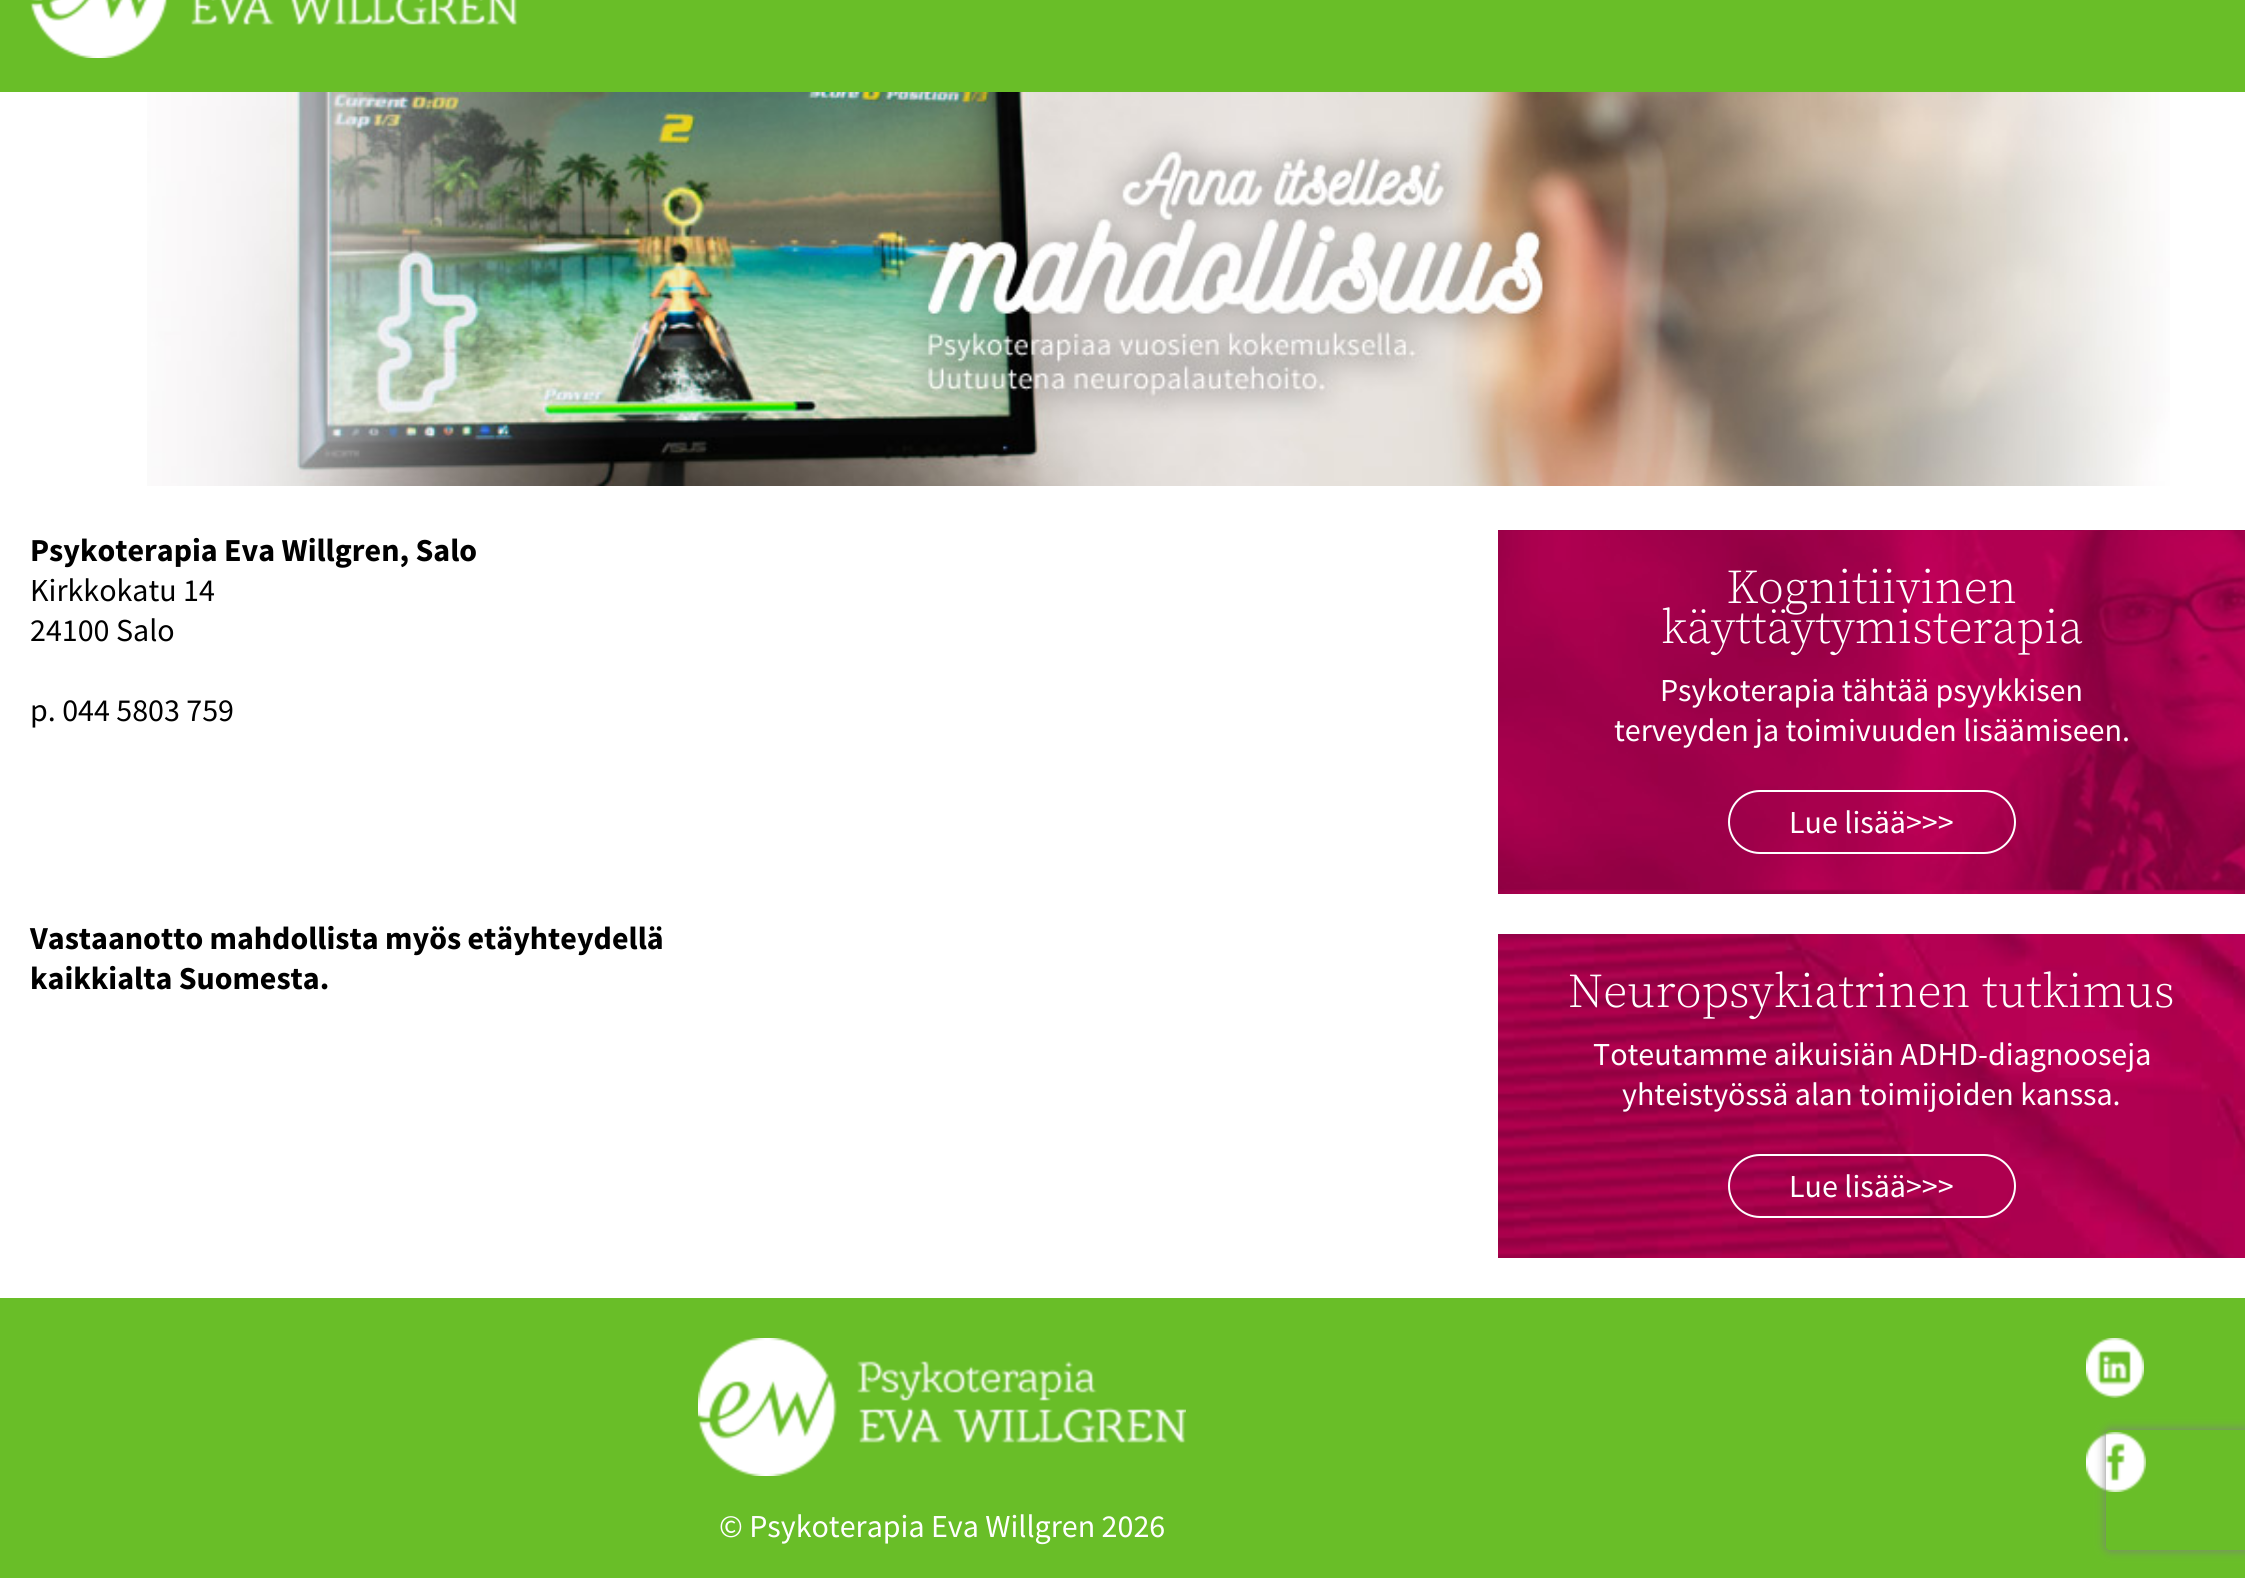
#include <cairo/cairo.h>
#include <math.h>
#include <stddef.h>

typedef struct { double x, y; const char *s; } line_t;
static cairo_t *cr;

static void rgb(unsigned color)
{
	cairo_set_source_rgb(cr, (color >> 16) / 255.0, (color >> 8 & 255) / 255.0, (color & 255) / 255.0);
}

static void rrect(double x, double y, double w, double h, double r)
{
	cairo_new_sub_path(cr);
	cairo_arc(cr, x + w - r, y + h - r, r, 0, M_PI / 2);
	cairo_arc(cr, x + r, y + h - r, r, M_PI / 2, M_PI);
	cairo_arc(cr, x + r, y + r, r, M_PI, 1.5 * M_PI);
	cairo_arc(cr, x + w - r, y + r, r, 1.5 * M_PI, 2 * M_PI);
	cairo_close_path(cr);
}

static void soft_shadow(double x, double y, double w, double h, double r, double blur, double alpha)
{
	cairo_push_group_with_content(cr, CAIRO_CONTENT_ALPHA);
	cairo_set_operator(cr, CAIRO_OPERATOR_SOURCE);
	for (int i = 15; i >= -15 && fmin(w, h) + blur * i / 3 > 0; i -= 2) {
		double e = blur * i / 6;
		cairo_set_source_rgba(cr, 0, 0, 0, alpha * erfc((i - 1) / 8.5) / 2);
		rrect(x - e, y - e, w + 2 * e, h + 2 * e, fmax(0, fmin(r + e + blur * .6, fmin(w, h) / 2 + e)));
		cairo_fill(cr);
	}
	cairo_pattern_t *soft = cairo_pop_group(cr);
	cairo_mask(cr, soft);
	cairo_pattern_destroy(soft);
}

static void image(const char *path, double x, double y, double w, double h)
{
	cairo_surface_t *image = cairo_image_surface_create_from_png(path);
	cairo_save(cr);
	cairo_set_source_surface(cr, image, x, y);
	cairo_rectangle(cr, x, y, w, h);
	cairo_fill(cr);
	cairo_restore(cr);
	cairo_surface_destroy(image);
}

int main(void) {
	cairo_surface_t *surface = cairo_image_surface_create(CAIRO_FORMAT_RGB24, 2245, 1578);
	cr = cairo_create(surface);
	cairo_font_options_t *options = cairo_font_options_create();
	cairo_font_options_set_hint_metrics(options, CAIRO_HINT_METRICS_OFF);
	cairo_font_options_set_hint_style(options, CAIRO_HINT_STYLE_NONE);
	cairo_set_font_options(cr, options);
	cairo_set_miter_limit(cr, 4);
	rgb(0xffffff);
	cairo_paint(cr);
	rgb(0x69be28);
	cairo_rectangle(cr, 0, 0, 2245, 92);
	cairo_fill(cr);
	image("img/1.png", 30, 0, 488, 58);
	image("img/2.png", 147, 92, 2023, 394);
	image("img/3.png", 1498, 530, 747, 364);
	rrect(1729, 791, 286, 62, 31);
	rgb(0xffffff);
	cairo_stroke(cr);
	image("img/4.png", 1498, 934, 747, 324);
	rrect(1729, 1155, 286, 62, 31);
	cairo_stroke(cr);
	rgb(0x69be28);
	cairo_rectangle(cr, 0, 1298, 2245, 280);
	cairo_fill(cr);
	image("img/5.png", 2086, 1338, 58, 60);
	image("img/6.png", 2086, 1432, 60, 60);
	image("img/7.png", 698, 1338, 488, 138);
	cairo_save(cr);
	cairo_set_fill_rule(cr, CAIRO_FILL_RULE_EVEN_ODD);
	cairo_new_path(cr);
	cairo_move_to(cr, 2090, 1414);
	cairo_line_to(cr, 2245, 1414);
	cairo_line_to(cr, 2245, 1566);
	cairo_line_to(cr, 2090, 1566);
	cairo_close_path(cr);
	cairo_move_to(cr, 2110, 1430);
	cairo_line_to(cr, 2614, 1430);
	cairo_curve_to(cr, 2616, 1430, 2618, 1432, 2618, 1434);
	cairo_line_to(cr, 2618, 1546);
	cairo_curve_to(cr, 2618, 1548, 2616, 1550, 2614, 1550);
	cairo_line_to(cr, 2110, 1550);
	cairo_curve_to(cr, 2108, 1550, 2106, 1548, 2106, 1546);
	cairo_line_to(cr, 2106, 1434);
	cairo_curve_to(cr, 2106, 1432, 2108, 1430, 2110, 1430);
	cairo_close_path(cr);
	cairo_clip(cr);
	rgb(0x808080);
	soft_shadow(2106, 1430, 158, 120, 4, 5, 1);
	cairo_restore(cr);
	cairo_select_font_face(cr, "Source Sans Pro", CAIRO_FONT_SLANT_NORMAL, CAIRO_FONT_WEIGHT_BOLD);
	cairo_set_font_size(cr, 32);
	rgb(0x000000);
	cairo_move_to(cr, 30, 561);
	cairo_show_text(cr, "Psykoterapia Eva Willgren, Salo");
	cairo_select_font_face(cr, "Source Sans Pro", CAIRO_FONT_SLANT_NORMAL, CAIRO_FONT_WEIGHT_NORMAL);
	{
		static const line_t items[] = {
			{30, 601, "Kirkkokatu 14"},
			{30, 641, "24100 Salo"},
			{30, 721, "p. 044 5803 759"},
		};
		for (size_t i = 0; i < sizeof items / sizeof *items; i++) {
			cairo_move_to(cr, items[i].x, items[i].y);
			cairo_show_text(cr, items[i].s);
		}
	}
	cairo_select_font_face(cr, "Source Sans Pro", CAIRO_FONT_SLANT_NORMAL, CAIRO_FONT_WEIGHT_BOLD);
	cairo_move_to(cr, 30, 949);
	cairo_show_text(cr, "Vastaanotto mahdollista myös etäyhteydellä");
	cairo_move_to(cr, 30, 989);
	cairo_show_text(cr, "kaikkialta Suomesta.");
	cairo_select_font_face(cr, "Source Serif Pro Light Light", CAIRO_FONT_SLANT_NORMAL, CAIRO_FONT_WEIGHT_NORMAL);
	cairo_set_font_size(cr, 48);
	rgb(0xffffff);
	cairo_move_to(cr, 1726, 603);
	cairo_show_text(cr, "Kognitiivinen");
	cairo_move_to(cr, 1661, 643);
	cairo_show_text(cr, "käyttäytymisterapia");
	cairo_select_font_face(cr, "Source Sans Pro", CAIRO_FONT_SLANT_NORMAL, CAIRO_FONT_WEIGHT_NORMAL);
	cairo_set_font_size(cr, 32);
	{
		static const line_t items[] = {
			{1660, 701, "Psykoterapia tähtää psyykkisen"},
			{1614, 741, "terveyden ja toimivuuden lisäämiseen."},
			{1789, 833, "Lue lisää>>>"},
		};
		for (size_t i = 0; i < sizeof items / sizeof *items; i++) {
			cairo_move_to(cr, items[i].x, items[i].y);
			cairo_show_text(cr, items[i].s);
		}
	}
	cairo_select_font_face(cr, "Source Serif Pro Light Light", CAIRO_FONT_SLANT_NORMAL, CAIRO_FONT_WEIGHT_NORMAL);
	cairo_set_font_size(cr, 48);
	cairo_move_to(cr, 1568, 1007);
	cairo_show_text(cr, "Neuropsykiatrinen tutkimus");
	cairo_select_font_face(cr, "Source Sans Pro", CAIRO_FONT_SLANT_NORMAL, CAIRO_FONT_WEIGHT_NORMAL);
	cairo_set_font_size(cr, 32);
	{
		static const line_t items[] = {
			{1593, 1065, "Toteutamme aikuisiän ADHD-diagnooseja"},
			{1622, 1105, "yhteistyössä alan toimijoiden kanssa."},
			{1789, 1197, "Lue lisää>>>"},
			{719, 1537, "© Psykoterapia Eva Willgren 2026"},
		};
		for (size_t i = 0; i < sizeof items / sizeof *items; i++) {
			cairo_move_to(cr, items[i].x, items[i].y);
			cairo_show_text(cr, items[i].s);
		}
	}
	cairo_surface_write_to_png(surface, "page.png");
	cairo_font_options_destroy(options);
	cairo_destroy(cr);
	cairo_surface_destroy(surface);
	return 0;
}
